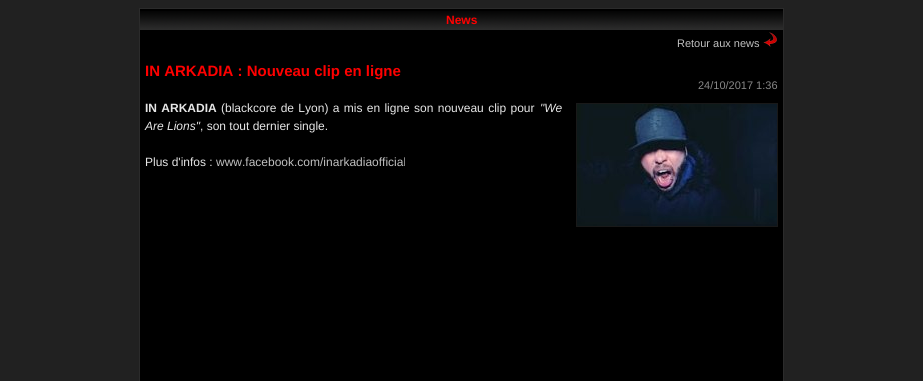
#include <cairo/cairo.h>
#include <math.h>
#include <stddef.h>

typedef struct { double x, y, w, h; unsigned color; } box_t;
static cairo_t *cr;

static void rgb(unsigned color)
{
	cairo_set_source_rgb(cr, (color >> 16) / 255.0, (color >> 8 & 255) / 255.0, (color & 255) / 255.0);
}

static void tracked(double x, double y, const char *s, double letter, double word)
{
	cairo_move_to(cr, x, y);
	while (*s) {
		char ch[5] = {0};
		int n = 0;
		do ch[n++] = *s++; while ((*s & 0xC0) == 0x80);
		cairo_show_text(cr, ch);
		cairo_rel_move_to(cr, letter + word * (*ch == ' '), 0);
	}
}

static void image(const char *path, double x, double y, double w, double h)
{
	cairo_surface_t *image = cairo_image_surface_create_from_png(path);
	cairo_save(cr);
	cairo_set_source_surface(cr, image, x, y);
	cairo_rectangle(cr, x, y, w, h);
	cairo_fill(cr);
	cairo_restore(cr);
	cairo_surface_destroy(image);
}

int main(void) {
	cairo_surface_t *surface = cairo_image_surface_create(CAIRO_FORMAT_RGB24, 923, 381);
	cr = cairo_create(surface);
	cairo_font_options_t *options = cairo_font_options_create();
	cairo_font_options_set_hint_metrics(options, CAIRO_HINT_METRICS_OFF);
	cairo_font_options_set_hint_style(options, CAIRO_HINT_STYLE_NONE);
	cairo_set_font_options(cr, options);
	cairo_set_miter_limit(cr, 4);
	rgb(0x212121);
	cairo_paint(cr);
	{
		static const box_t items[] = {
			{140, 9, 643, 372, 0x000000},
			{139, 8, 645, 1, 0x2b2b2b},
			{783, 8, 1, 373, 0x2b2b2b},
			{139, 8, 1, 373, 0x2b2b2b},
		};
		for (size_t i = 0; i < sizeof items / sizeof *items; i++) {
			rgb(items[i].color);
			cairo_rectangle(cr, items[i].x, items[i].y, items[i].w, items[i].h);
			cairo_fill(cr);
		}
	}
	image("img/1.png", 140, 11, 643, 19);
	image("img/2.png", 763, 32, 14, 15);
	cairo_rectangle(cr, 576.5, 103.5, 201, 123);
	rgb(0x191919);
	cairo_set_line_width(cr, 1);
	cairo_stroke(cr);
	image("img/3.png", 577, 104, 200, 122);
	cairo_select_font_face(cr, "Liberation Sans", CAIRO_FONT_SLANT_NORMAL, CAIRO_FONT_WEIGHT_BOLD);
	cairo_set_font_size(cr, 12);
	rgb(0xff0000);
	cairo_move_to(cr, 446, 24);
	cairo_show_text(cr, "News");
	cairo_select_font_face(cr, "Liberation Sans", CAIRO_FONT_SLANT_NORMAL, CAIRO_FONT_WEIGHT_NORMAL);
	cairo_set_font_size(cr, 11);
	rgb(0xc0c0c0);
	cairo_move_to(cr, 677, 47);
	cairo_show_text(cr, "Retour aux news");
	cairo_select_font_face(cr, "Liberation Sans", CAIRO_FONT_SLANT_NORMAL, CAIRO_FONT_WEIGHT_BOLD);
	cairo_set_font_size(cr, 15);
	rgb(0xff0000);
	cairo_move_to(cr, 145, 76);
	cairo_show_text(cr, "IN ARKADIA : Nouveau clip en ligne");
	cairo_select_font_face(cr, "Liberation Sans", CAIRO_FONT_SLANT_NORMAL, CAIRO_FONT_WEIGHT_NORMAL);
	cairo_set_font_size(cr, 11);
	rgb(0x888888);
	cairo_move_to(cr, 698, 89);
	cairo_show_text(cr, "24/10/2017 1:36");
	cairo_select_font_face(cr, "Liberation Sans", CAIRO_FONT_SLANT_NORMAL, CAIRO_FONT_WEIGHT_BOLD);
	cairo_set_font_size(cr, 12);
	rgb(0xe6e6e6);
	tracked(145, 112, "IN ARKADIA", 0, 1);
	cairo_select_font_face(cr, "Liberation Sans", CAIRO_FONT_SLANT_NORMAL, CAIRO_FONT_WEIGHT_NORMAL);
	tracked(221, 112, "(blackcore de Lyon) a mis en ligne son nouveau clip pour", 0, 1);
	cairo_select_font_face(cr, "Liberation Sans", CAIRO_FONT_SLANT_ITALIC, CAIRO_FONT_WEIGHT_NORMAL);
	cairo_move_to(cr, 540, 112);
	cairo_show_text(cr, "\"We");
	cairo_move_to(cr, 145, 130);
	cairo_show_text(cr, "Are Lions\"");
	cairo_select_font_face(cr, "Liberation Sans", CAIRO_FONT_SLANT_NORMAL, CAIRO_FONT_WEIGHT_NORMAL);
	cairo_move_to(cr, 200, 130);
	cairo_show_text(cr, ", son tout dernier single.");
	cairo_move_to(cr, 145, 166);
	cairo_show_text(cr, "Plus d'infos :");
	rgb(0xc0c0c0);
	cairo_move_to(cr, 216, 166);
	cairo_show_text(cr, "www.facebook.com/inarkadiaofficial");
	cairo_surface_write_to_png(surface, "page.png");
	cairo_font_options_destroy(options);
	cairo_destroy(cr);
	cairo_surface_destroy(surface);
	return 0;
}
